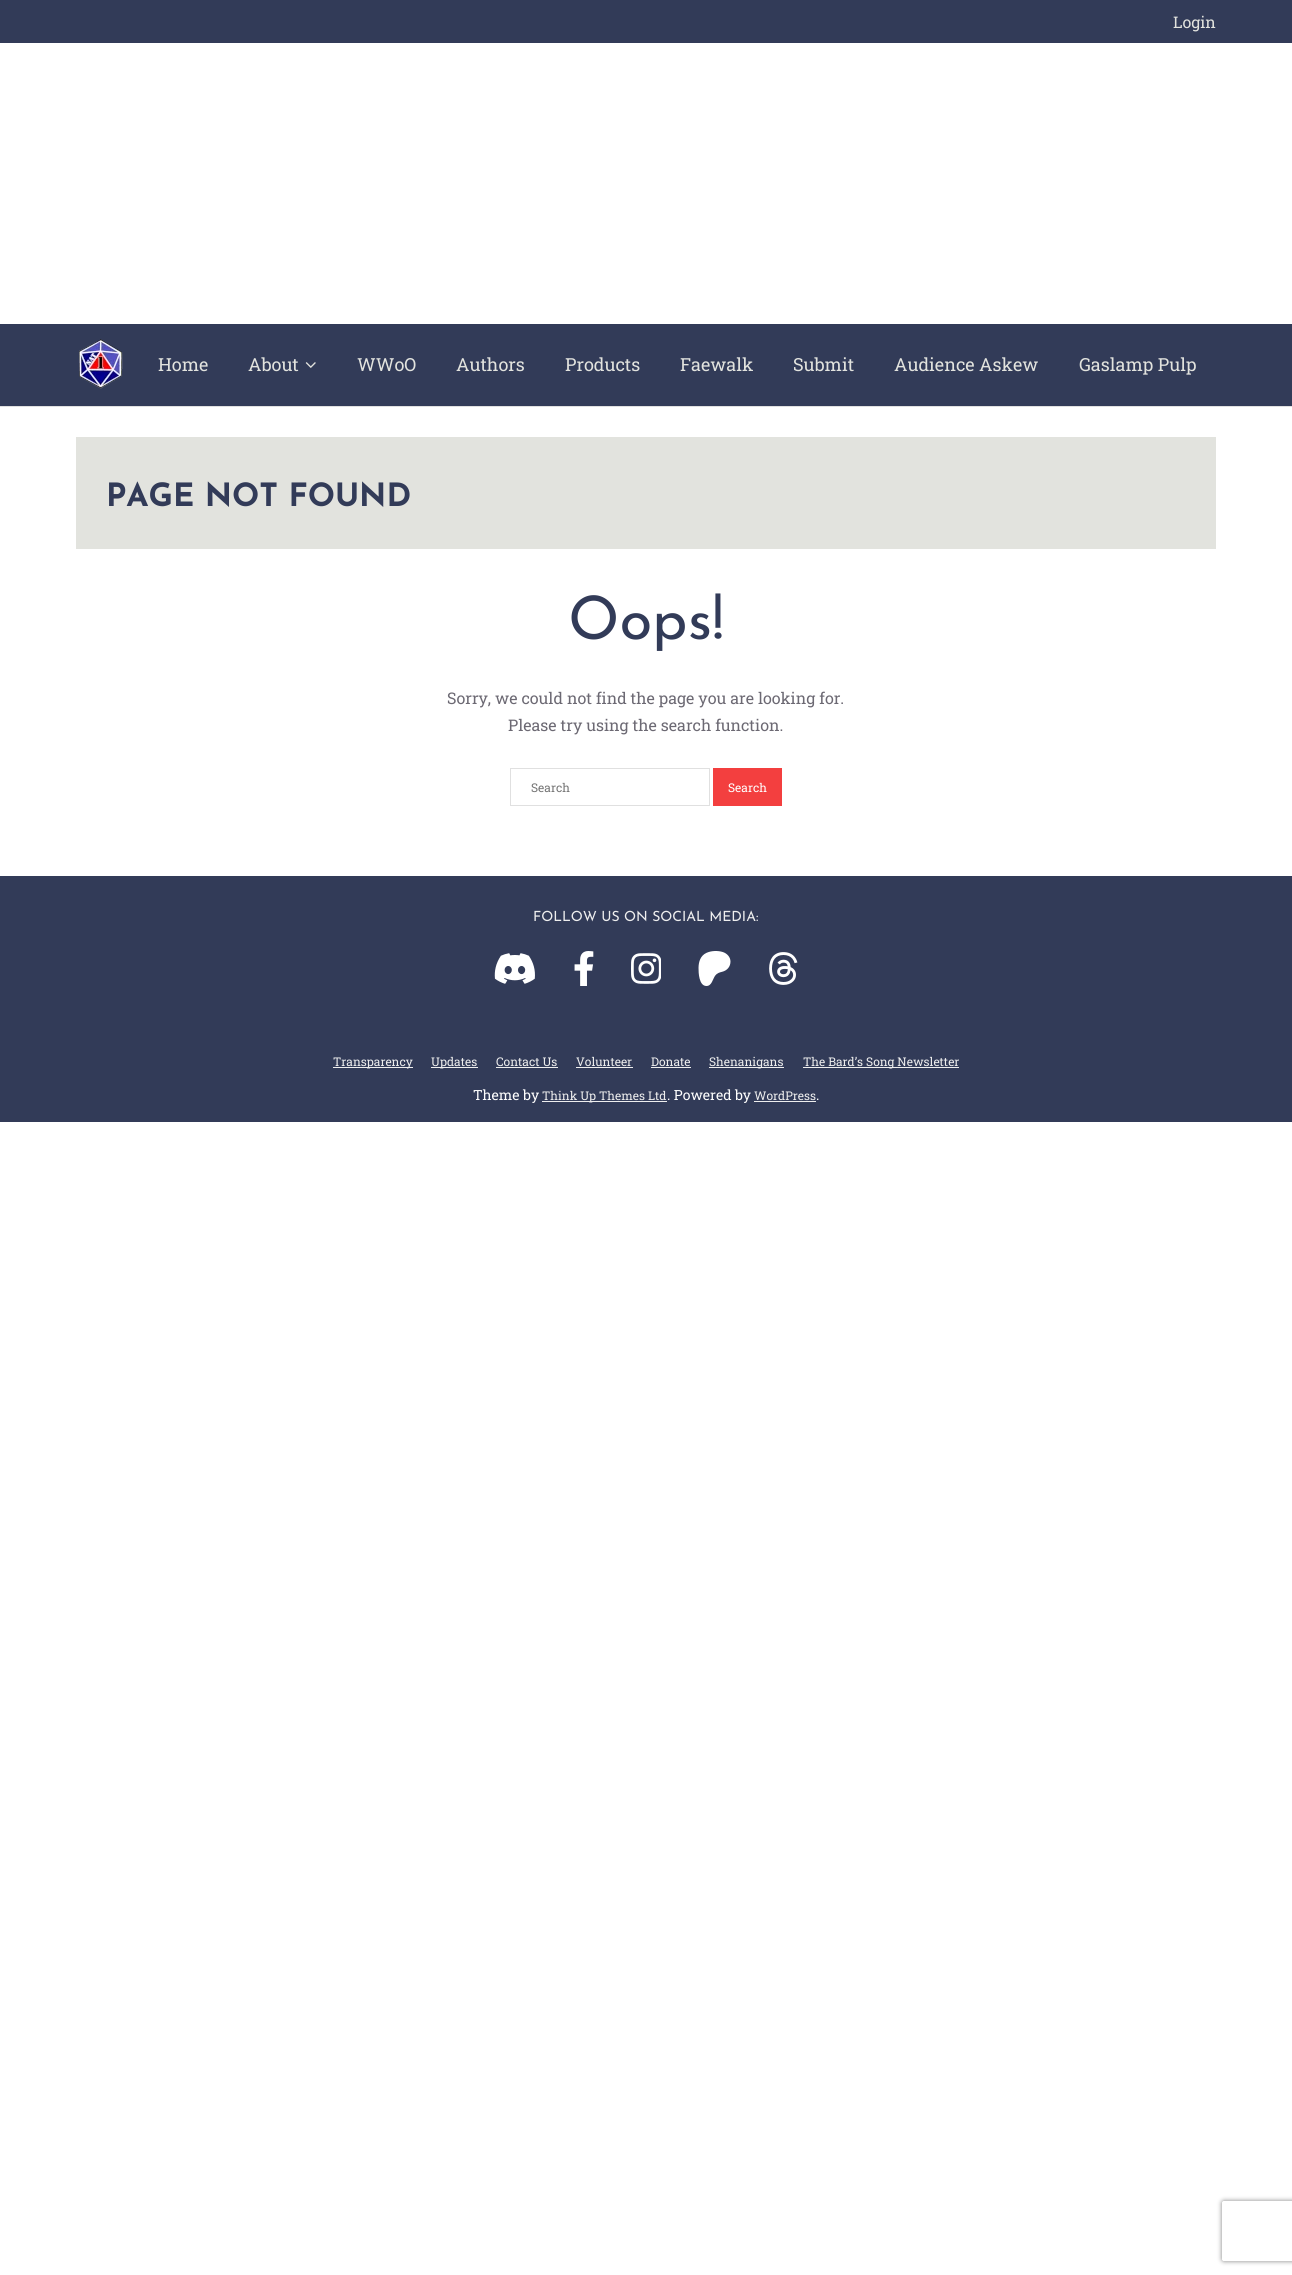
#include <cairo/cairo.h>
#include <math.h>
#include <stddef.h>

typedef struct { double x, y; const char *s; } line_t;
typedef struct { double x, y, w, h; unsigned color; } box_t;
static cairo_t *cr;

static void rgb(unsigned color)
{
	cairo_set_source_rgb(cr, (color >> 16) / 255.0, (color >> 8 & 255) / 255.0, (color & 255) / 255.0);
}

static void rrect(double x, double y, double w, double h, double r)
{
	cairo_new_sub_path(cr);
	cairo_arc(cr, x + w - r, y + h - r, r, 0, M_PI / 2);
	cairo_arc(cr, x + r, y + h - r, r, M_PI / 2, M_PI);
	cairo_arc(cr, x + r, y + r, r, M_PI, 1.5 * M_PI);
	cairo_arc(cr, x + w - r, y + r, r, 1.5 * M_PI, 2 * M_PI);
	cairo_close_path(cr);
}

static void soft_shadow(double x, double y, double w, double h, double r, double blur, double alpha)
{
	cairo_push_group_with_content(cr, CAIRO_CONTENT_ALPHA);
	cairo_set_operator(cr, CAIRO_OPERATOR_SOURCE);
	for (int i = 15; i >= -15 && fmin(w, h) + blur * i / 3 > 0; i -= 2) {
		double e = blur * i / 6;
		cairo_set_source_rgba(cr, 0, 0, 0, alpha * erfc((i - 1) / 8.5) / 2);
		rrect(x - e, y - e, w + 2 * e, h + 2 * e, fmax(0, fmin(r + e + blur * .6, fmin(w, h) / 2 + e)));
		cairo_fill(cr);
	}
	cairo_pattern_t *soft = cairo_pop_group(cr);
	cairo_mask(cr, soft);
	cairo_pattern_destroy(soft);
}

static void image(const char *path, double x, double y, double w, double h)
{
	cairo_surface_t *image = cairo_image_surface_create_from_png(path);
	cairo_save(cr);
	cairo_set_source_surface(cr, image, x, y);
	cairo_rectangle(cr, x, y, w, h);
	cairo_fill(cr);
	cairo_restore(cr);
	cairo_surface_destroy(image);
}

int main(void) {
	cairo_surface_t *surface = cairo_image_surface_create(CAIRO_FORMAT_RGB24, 1292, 2275);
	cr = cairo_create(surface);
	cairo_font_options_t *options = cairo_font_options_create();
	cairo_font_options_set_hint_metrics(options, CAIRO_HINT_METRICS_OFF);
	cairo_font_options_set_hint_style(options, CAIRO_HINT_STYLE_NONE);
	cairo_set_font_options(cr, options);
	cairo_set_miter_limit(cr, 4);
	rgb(0xffffff);
	cairo_paint(cr);
	{
		static const box_t items[] = {
			{0, 0, 1292, 43, 0x323b58},
			{0, 324, 1292, 82, 0x323b58},
			{0, 406, 1292, 1, 0xe0e0e0},
		};
		for (size_t i = 0; i < sizeof items / sizeof *items; i++) {
			rgb(items[i].color);
			cairo_rectangle(cr, items[i].x, items[i].y, items[i].w, items[i].h);
			cairo_fill(cr);
		}
	}
	image("img/1.png", 79, 339, 44, 50);
	image("img/2.png", 305, 362, 11, 6);
	rgb(0xe2e3de);
	cairo_rectangle(cr, 76, 437, 1140, 112);
	cairo_fill(cr);
	cairo_rectangle(cr, 510.5, 768.5, 199, 37);
	rgb(0xe0e0e0);
	cairo_set_line_width(cr, 1);
	cairo_stroke(cr);
	rgb(0xf33f3f);
	cairo_rectangle(cr, 713, 768, 69, 38);
	cairo_fill(cr);
	rgb(0x323b58);
	cairo_rectangle(cr, 0, 876, 1292, 246);
	cairo_fill(cr);
	image("img/3.png", 494, 953, 41, 31);
	image("img/4.png", 574, 951, 20, 35);
	image("img/5.png", 631, 953, 30, 31);
	image("img/6.png", 698, 951, 33, 35);
	image("img/7.png", 769, 952, 29, 33);
	{
		static const box_t items[] = {
			{333, 1067, 80, 1, 0xeeeeee},
			{431, 1067, 47, 1, 0xeeeeee},
			{496, 1067, 62, 1, 0xeeeeee},
			{576, 1067, 57, 1, 0xeeeeee},
			{651, 1067, 40, 1, 0xeeeeee},
			{709, 1067, 75, 1, 0xeeeeee},
			{803, 1067, 156, 1, 0xeeeeee},
			{542, 1101, 125, 1, 0xeeeeee},
			{754, 1101, 62, 1, 0xeeeeee},
		};
		for (size_t i = 0; i < sizeof items / sizeof *items; i++) {
			rgb(items[i].color);
			cairo_rectangle(cr, items[i].x, items[i].y, items[i].w, items[i].h);
			cairo_fill(cr);
		}
	}
	cairo_save(cr);
	cairo_set_fill_rule(cr, CAIRO_FILL_RULE_EVEN_ODD);
	cairo_new_path(cr);
	cairo_move_to(cr, 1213, 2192);
	cairo_line_to(cr, 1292, 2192);
	cairo_line_to(cr, 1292, 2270);
	cairo_line_to(cr, 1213, 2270);
	cairo_close_path(cr);
	cairo_move_to(cr, 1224, 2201);
	cairo_line_to(cr, 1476, 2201);
	cairo_curve_to(cr, 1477, 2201, 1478, 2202, 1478, 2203);
	cairo_line_to(cr, 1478, 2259);
	cairo_curve_to(cr, 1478, 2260, 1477, 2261, 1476, 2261);
	cairo_line_to(cr, 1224, 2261);
	cairo_curve_to(cr, 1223, 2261, 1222, 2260, 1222, 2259);
	cairo_line_to(cr, 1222, 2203);
	cairo_curve_to(cr, 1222, 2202, 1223, 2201, 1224, 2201);
	cairo_close_path(cr);
	cairo_clip(cr);
	rgb(0x808080);
	soft_shadow(1222, 2201, 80, 60, 2, 2.5, 1);
	cairo_restore(cr);
	cairo_select_font_face(cr, "Roboto Slab", CAIRO_FONT_SLANT_NORMAL, CAIRO_FONT_WEIGHT_NORMAL);
	cairo_set_font_size(cr, 16);
	rgb(0xe2e3de);
	cairo_move_to(cr, 1173, 28);
	cairo_show_text(cr, "Login");
	cairo_set_font_size(cr, 18);
	{
		static const line_t items[] = {
			{158, 371, "Home"},
			{248, 371, "About"},
			{357, 371, "WWoO"},
			{456, 371, "Authors"},
			{565, 371, "Products"},
			{680, 371, "Faewalk"},
			{793, 371, "Submit"},
			{894, 371, "Audience Askew"},
			{1079, 371, "Gaslamp Pulp"},
		};
		for (size_t i = 0; i < sizeof items / sizeof *items; i++) {
			cairo_move_to(cr, items[i].x, items[i].y);
			cairo_show_text(cr, items[i].s);
		}
	}
	cairo_select_font_face(cr, "Josefin Sans", CAIRO_FONT_SLANT_NORMAL, CAIRO_FONT_WEIGHT_BOLD);
	cairo_set_font_size(cr, 32);
	rgb(0x323b58);
	cairo_move_to(cr, 106, 506);
	cairo_show_text(cr, "PAGE NOT FOUND");
	cairo_select_font_face(cr, "Josefin Sans", CAIRO_FONT_SLANT_NORMAL, CAIRO_FONT_WEIGHT_NORMAL);
	cairo_set_font_size(cr, 60);
	cairo_move_to(cr, 568, 639);
	cairo_show_text(cr, "Oops!");
	cairo_select_font_face(cr, "Roboto Slab", CAIRO_FONT_SLANT_NORMAL, CAIRO_FONT_WEIGHT_NORMAL);
	cairo_set_font_size(cr, 16);
	rgb(0x6c6973);
	cairo_move_to(cr, 447, 704);
	cairo_show_text(cr, "Sorry, we could not find the page you are looking for.");
	cairo_move_to(cr, 508, 731);
	cairo_show_text(cr, "Please try using the search function.");
	cairo_set_font_size(cr, 12);
	rgb(0x757575);
	cairo_move_to(cr, 531, 792);
	cairo_show_text(cr, "Search");
	rgb(0xffffff);
	cairo_move_to(cr, 728, 792);
	cairo_show_text(cr, "Search");
	cairo_select_font_face(cr, "Josefin Sans", CAIRO_FONT_SLANT_NORMAL, CAIRO_FONT_WEIGHT_NORMAL);
	cairo_set_font_size(cr, 14);
	rgb(0xeeeeee);
	cairo_move_to(cr, 533, 921);
	cairo_show_text(cr, "FOLLOW US ON SOCIAL MEDIA:");
	cairo_select_font_face(cr, "Roboto Slab", CAIRO_FONT_SLANT_NORMAL, CAIRO_FONT_WEIGHT_NORMAL);
	cairo_set_font_size(cr, 12);
	{
		static const line_t items[] = {
			{333, 1066, "Transparency"},
			{431, 1066, "Updates"},
			{496, 1066, "Contact Us"},
			{576, 1066, "Volunteer"},
			{651, 1066, "Donate"},
			{709, 1066, "Shenanigans"},
			{803, 1066, "The Bard’s Song Newsletter"},
		};
		for (size_t i = 0; i < sizeof items / sizeof *items; i++) {
			cairo_move_to(cr, items[i].x, items[i].y);
			cairo_show_text(cr, items[i].s);
		}
	}
	cairo_set_font_size(cr, 14);
	rgb(0xffffff);
	cairo_move_to(cr, 473, 1100);
	cairo_show_text(cr, "Theme by");
	cairo_set_font_size(cr, 12);
	rgb(0xeeeeee);
	cairo_move_to(cr, 542, 1100);
	cairo_show_text(cr, "Think Up Themes Ltd");
	cairo_set_font_size(cr, 14);
	rgb(0xffffff);
	cairo_move_to(cr, 667, 1100);
	cairo_show_text(cr, ". Powered by");
	cairo_set_font_size(cr, 12);
	rgb(0xeeeeee);
	cairo_move_to(cr, 754, 1100);
	cairo_show_text(cr, "WordPress");
	cairo_set_font_size(cr, 14);
	rgb(0xffffff);
	cairo_move_to(cr, 816, 1100);
	cairo_show_text(cr, ".");
	cairo_surface_write_to_png(surface, "page.png");
	cairo_font_options_destroy(options);
	cairo_destroy(cr);
	cairo_surface_destroy(surface);
	return 0;
}
